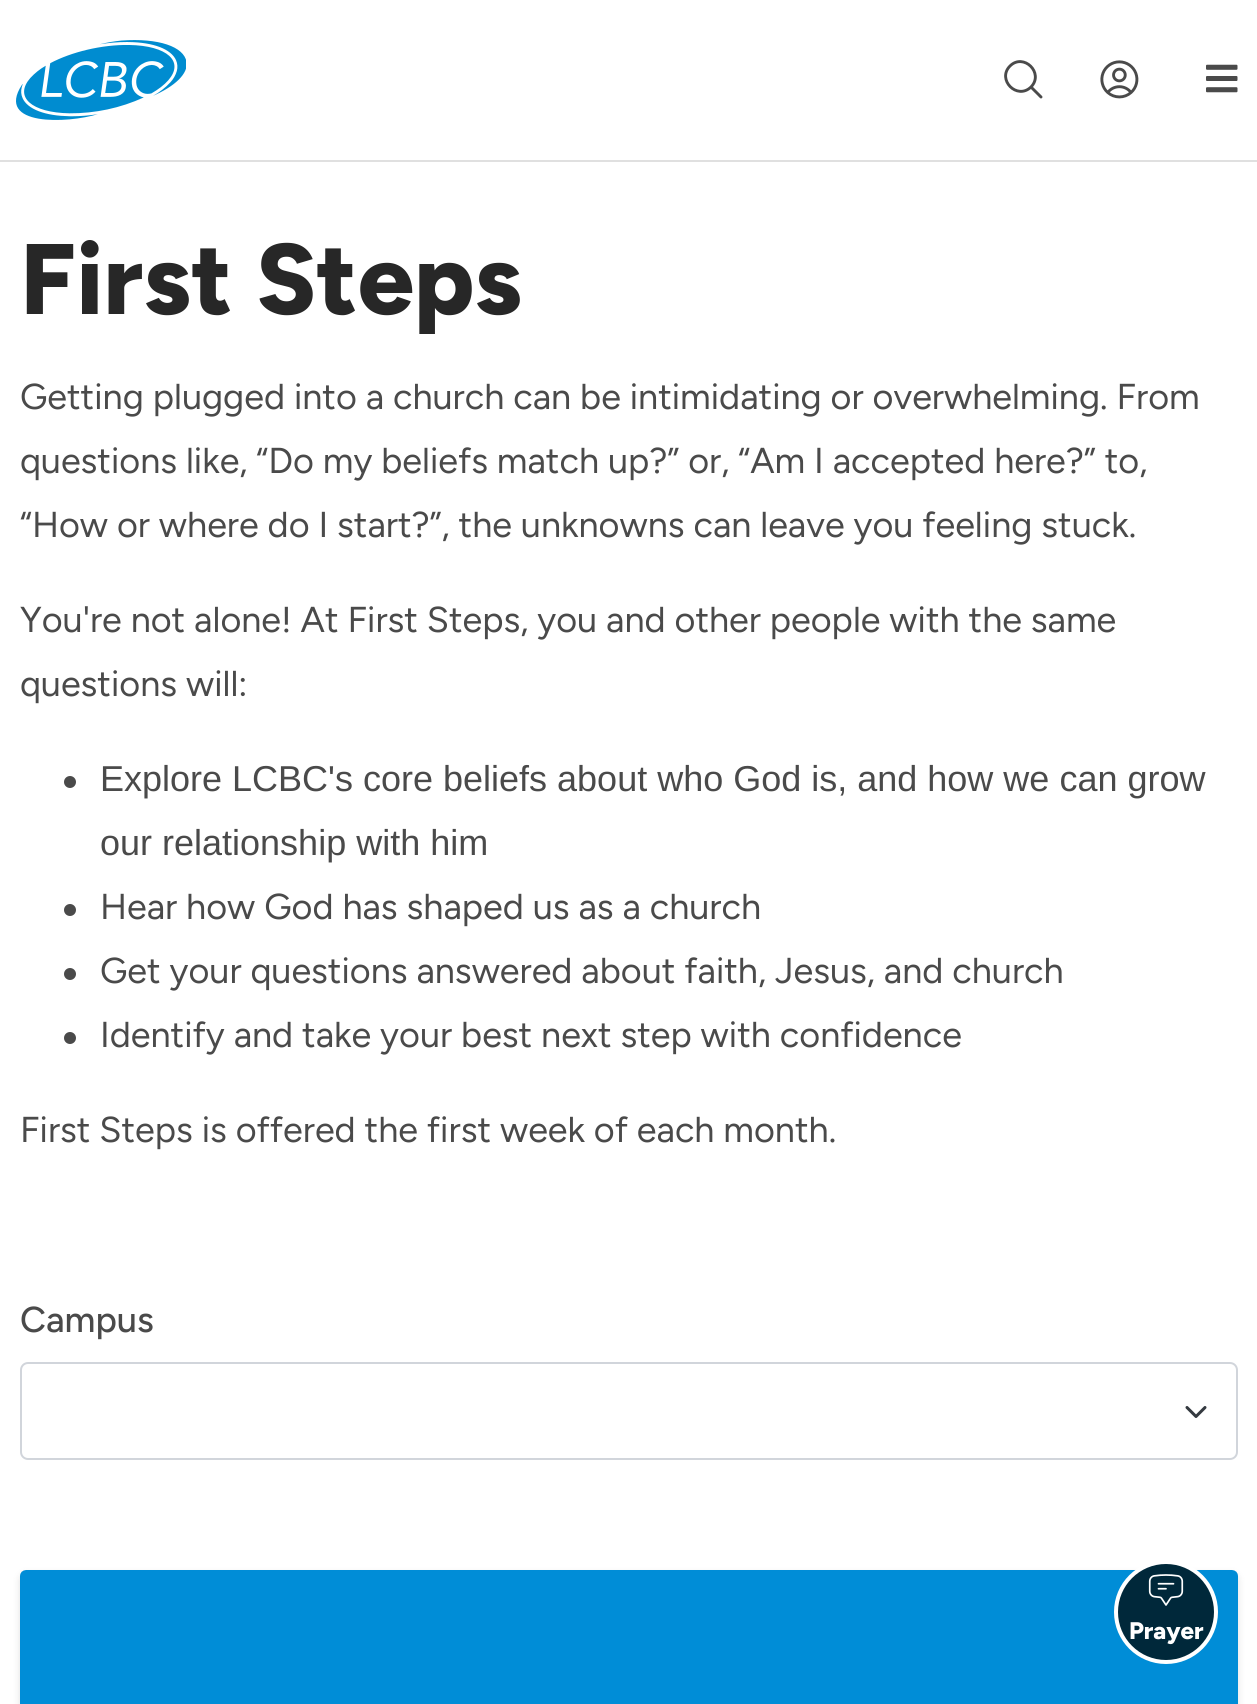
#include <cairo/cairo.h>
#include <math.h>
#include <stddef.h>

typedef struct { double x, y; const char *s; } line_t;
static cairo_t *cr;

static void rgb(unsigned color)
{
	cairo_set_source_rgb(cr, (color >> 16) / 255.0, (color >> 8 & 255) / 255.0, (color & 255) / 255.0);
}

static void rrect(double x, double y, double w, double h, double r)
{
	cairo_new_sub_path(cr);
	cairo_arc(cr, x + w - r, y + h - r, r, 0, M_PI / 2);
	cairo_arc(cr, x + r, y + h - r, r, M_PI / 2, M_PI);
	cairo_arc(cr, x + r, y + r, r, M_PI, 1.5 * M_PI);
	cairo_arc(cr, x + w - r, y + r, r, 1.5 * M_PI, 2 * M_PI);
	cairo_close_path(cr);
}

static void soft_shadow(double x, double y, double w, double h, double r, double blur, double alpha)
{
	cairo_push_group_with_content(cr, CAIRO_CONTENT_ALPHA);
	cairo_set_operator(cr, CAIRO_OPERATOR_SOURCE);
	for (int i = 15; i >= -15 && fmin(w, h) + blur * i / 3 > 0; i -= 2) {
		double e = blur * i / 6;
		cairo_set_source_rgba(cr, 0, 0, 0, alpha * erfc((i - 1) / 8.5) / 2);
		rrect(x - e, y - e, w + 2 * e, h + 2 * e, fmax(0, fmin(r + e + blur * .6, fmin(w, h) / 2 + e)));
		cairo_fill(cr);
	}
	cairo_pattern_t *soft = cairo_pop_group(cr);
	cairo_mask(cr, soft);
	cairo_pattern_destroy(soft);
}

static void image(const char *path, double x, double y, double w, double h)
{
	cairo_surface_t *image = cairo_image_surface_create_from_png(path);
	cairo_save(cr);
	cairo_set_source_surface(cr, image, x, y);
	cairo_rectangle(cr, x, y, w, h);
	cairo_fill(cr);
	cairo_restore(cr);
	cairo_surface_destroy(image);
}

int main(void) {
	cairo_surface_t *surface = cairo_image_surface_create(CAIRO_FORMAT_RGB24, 1257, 1704);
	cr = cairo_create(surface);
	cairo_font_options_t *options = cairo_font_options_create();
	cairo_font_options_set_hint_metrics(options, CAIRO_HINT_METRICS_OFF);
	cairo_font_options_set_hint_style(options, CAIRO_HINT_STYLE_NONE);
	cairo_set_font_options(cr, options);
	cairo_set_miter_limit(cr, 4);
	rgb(0xffffff);
	cairo_paint(cr);
	rgb(0xe0e0e0);
	cairo_rectangle(cr, 0, 160, 1257, 2);
	cairo_fill(cr);
	image("img/1.png", 16, 40, 170, 80);
	cairo_new_path(cr);
	cairo_move_to(cr, 1041, 97);
	cairo_line_to(cr, 1031, 87);
	cairo_move_to(cr, 1031, 87);
	cairo_curve_to(cr, 1044.5, 73, 1023.5, 52.5, 1010, 66);
	cairo_curve_to(cr, 996.5, 79.5, 1017, 100.5, 1031, 87);
	cairo_close_path(cr);
	rgb(0x4a4a4a);
	cairo_set_line_width(cr, 2.9);
	cairo_set_line_cap(cr, CAIRO_LINE_CAP_ROUND);
	cairo_set_line_join(cr, CAIRO_LINE_JOIN_ROUND);
	cairo_stroke(cr);
	image("img/2.png", 1100, 60, 39, 39);
	image("img/3.png", 1206, 64, 32, 29);
	cairo_arc(cr, 70, 782, 6, 0, 2 * M_PI);
	cairo_fill(cr);
	cairo_arc(cr, 70, 910, 6, 0, 2 * M_PI);
	cairo_fill(cr);
	cairo_arc(cr, 70, 974, 6, 0, 2 * M_PI);
	cairo_fill(cr);
	cairo_arc(cr, 70, 1038, 6, 0, 2 * M_PI);
	cairo_fill(cr);
	cairo_new_path(cr);
	cairo_move_to(cr, 1187, 1407.5);
	cairo_line_to(cr, 1196, 1416.5);
	cairo_line_to(cr, 1205, 1407.5);
	rgb(0x343a40);
	cairo_set_line_width(cr, 3);
	cairo_stroke(cr);
	rrect(21, 1363, 1216, 96, 7);
	rgb(0xd1d5db);
	cairo_set_line_width(cr, 2);
	cairo_set_line_cap(cr, CAIRO_LINE_CAP_BUTT);
	cairo_set_line_join(cr, CAIRO_LINE_JOIN_MITER);
	cairo_stroke(cr);
	rgb(0x000000);
	soft_shadow(20, 1574, 1218, 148, 6, 4, 0.12);
	image("img/4.png", 20, 1570, 1218, 134);
	rgb(0x00283a);
	cairo_arc(cr, 1166, 1612, 50, 0, 2 * M_PI);
	cairo_fill_preserve(cr);
	rgb(0xffffff);
	cairo_set_line_width(cr, 4);
	cairo_stroke(cr);
	image("img/5.png", 1148, 1574, 36, 32);
	cairo_select_font_face(cr, "Figtree ExtraBold", CAIRO_FONT_SLANT_NORMAL, CAIRO_FONT_WEIGHT_NORMAL);
	cairo_set_font_size(cr, 100);
	rgb(0x272727);
	cairo_move_to(cr, 20, 314);
	cairo_show_text(cr, "First Steps");
	cairo_select_font_face(cr, "Figtree", CAIRO_FONT_SLANT_NORMAL, CAIRO_FONT_WEIGHT_NORMAL);
	cairo_set_font_size(cr, 36);
	rgb(0x4a4a4a);
	{
		static const line_t items[] = {
			{20, 409, "Getting plugged into a church can be intimidating or overwhelming. From"},
			{20, 473, "questions like, “Do my beliefs match up?” or, “Am I accepted here?” to,"},
			{20, 537, "“How or where do I start?”, the unknowns can leave you feeling stuck."},
			{20, 632, "You're not alone! At First Steps, you and other people with the same"},
			{20, 696, "questions will:"},
		};
		for (size_t i = 0; i < sizeof items / sizeof *items; i++) {
			cairo_move_to(cr, items[i].x, items[i].y);
			cairo_show_text(cr, items[i].s);
		}
	}
	cairo_select_font_face(cr, "Liberation Sans", CAIRO_FONT_SLANT_NORMAL, CAIRO_FONT_WEIGHT_NORMAL);
	cairo_move_to(cr, 100, 791);
	cairo_show_text(cr, "Explore LCBC's core beliefs about who God is, and how we can grow");
	cairo_move_to(cr, 100, 855);
	cairo_show_text(cr, "our relationship with him");
	cairo_select_font_face(cr, "Figtree", CAIRO_FONT_SLANT_NORMAL, CAIRO_FONT_WEIGHT_NORMAL);
	{
		static const line_t items[] = {
			{100, 919, "Hear how God has shaped us as a church"},
			{100, 983, "Get your questions answered about faith, Jesus, and church"},
			{100, 1047, "Identify and take your best next step with confidence"},
			{20, 1142, "First Steps is offered the first week of each month."},
		};
		for (size_t i = 0; i < sizeof items / sizeof *items; i++) {
			cairo_move_to(cr, items[i].x, items[i].y);
			cairo_show_text(cr, items[i].s);
		}
	}
	cairo_select_font_face(cr, "Figtree Medium", CAIRO_FONT_SLANT_NORMAL, CAIRO_FONT_WEIGHT_NORMAL);
	cairo_move_to(cr, 20, 1332);
	cairo_show_text(cr, "Campus");
	cairo_select_font_face(cr, "Figtree ExtraBold", CAIRO_FONT_SLANT_NORMAL, CAIRO_FONT_WEIGHT_NORMAL);
	cairo_set_font_size(cr, 24);
	rgb(0xffffff);
	cairo_move_to(cr, 1129, 1639);
	cairo_show_text(cr, "Prayer");
	cairo_surface_write_to_png(surface, "page.png");
	cairo_font_options_destroy(options);
	cairo_destroy(cr);
	cairo_surface_destroy(surface);
	return 0;
}
